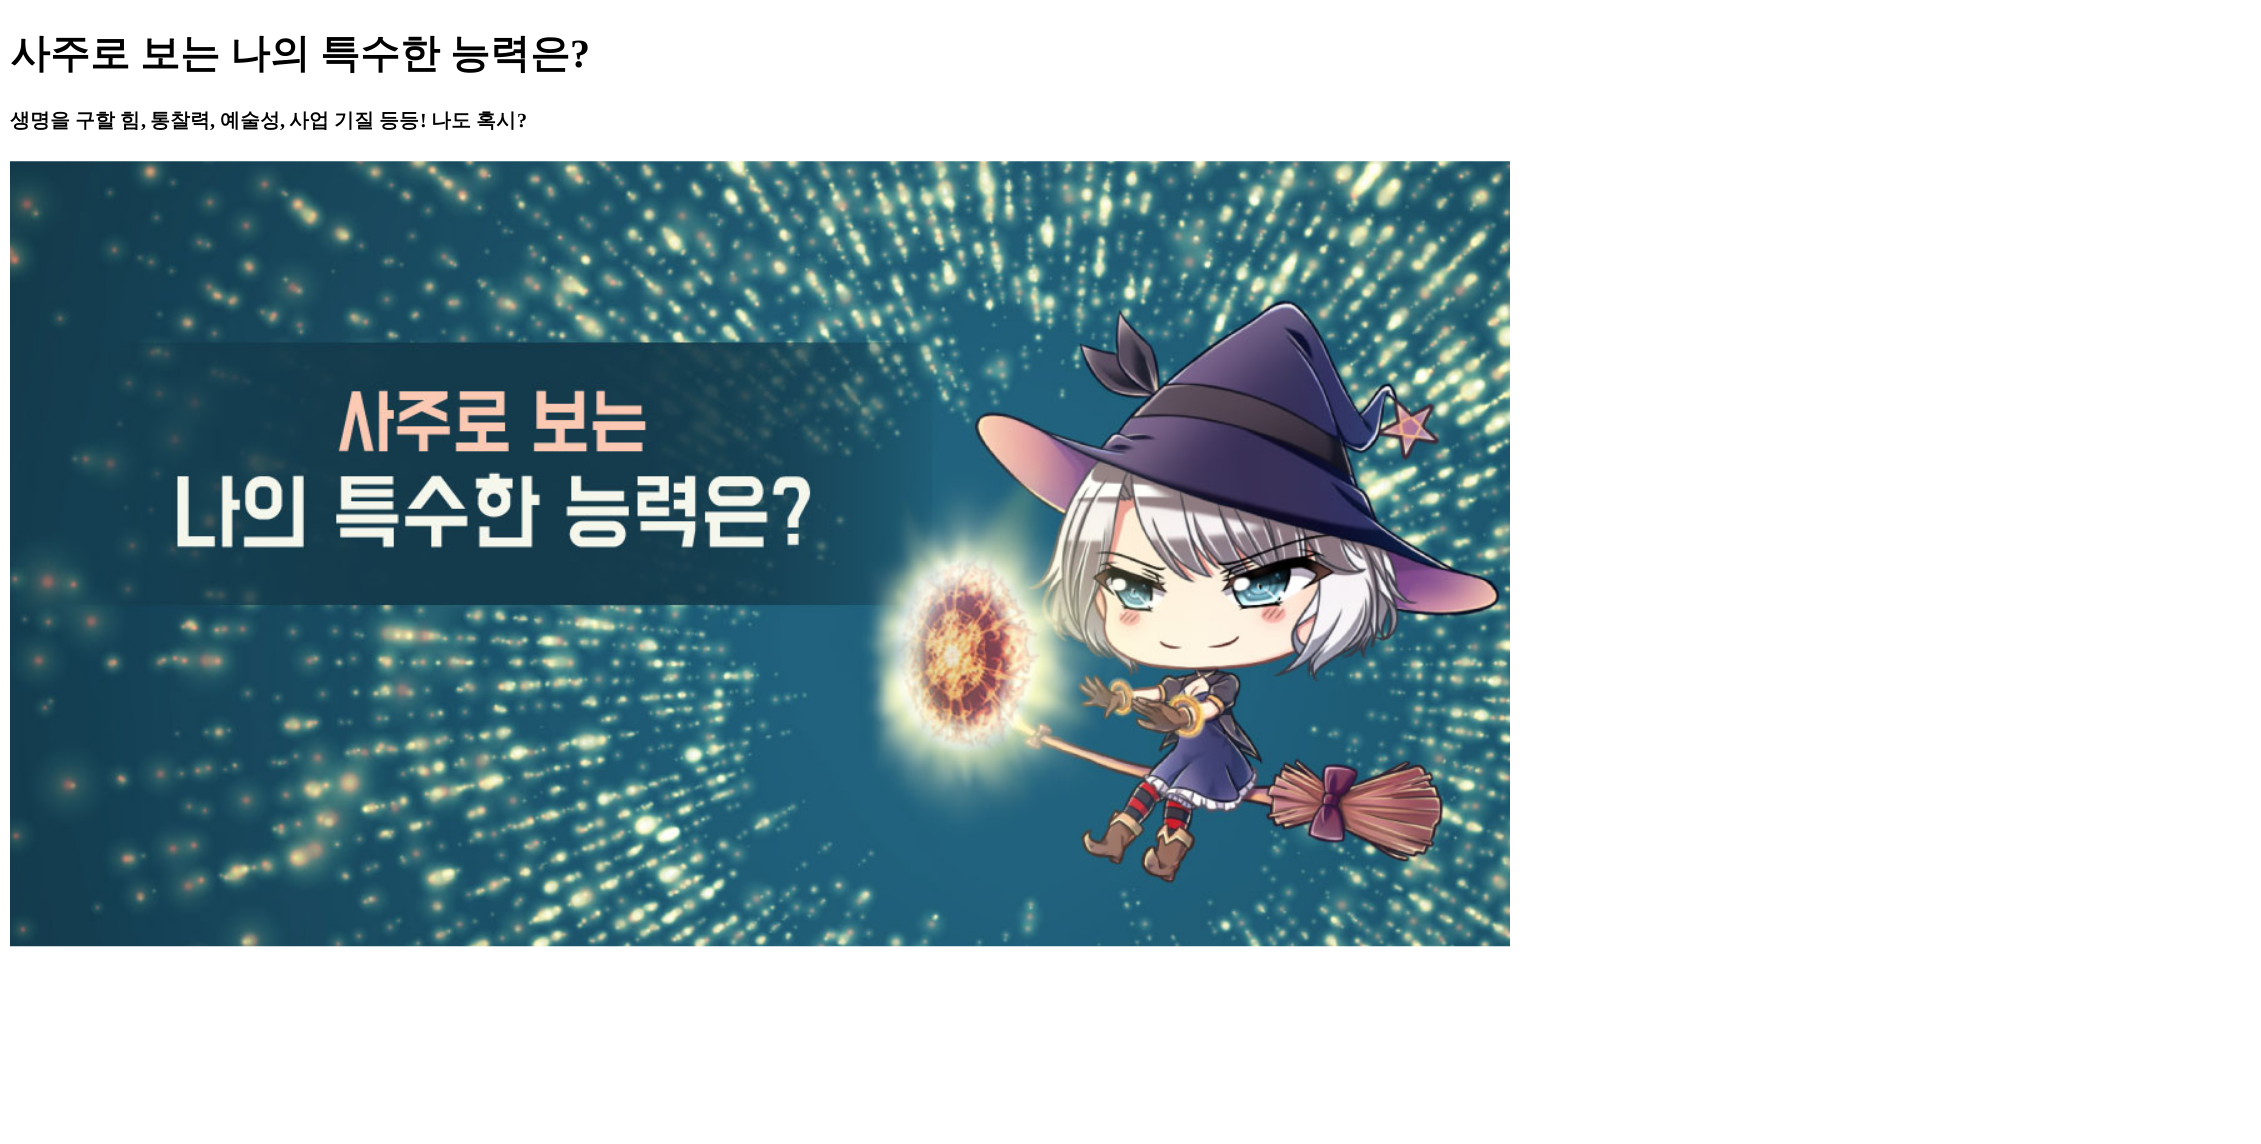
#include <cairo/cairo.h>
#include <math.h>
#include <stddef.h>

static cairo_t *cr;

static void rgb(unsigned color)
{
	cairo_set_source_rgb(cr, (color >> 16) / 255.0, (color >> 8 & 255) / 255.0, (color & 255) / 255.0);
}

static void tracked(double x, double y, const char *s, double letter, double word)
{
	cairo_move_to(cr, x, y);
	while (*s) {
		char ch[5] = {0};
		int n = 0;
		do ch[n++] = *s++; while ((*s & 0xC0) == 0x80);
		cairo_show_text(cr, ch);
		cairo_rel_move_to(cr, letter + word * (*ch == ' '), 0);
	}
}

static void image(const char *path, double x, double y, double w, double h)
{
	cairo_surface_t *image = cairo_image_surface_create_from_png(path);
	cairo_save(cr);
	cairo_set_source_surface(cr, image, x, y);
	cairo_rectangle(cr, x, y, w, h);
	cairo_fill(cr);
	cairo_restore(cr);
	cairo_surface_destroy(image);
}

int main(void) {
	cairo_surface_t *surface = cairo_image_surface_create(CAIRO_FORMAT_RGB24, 2261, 1144);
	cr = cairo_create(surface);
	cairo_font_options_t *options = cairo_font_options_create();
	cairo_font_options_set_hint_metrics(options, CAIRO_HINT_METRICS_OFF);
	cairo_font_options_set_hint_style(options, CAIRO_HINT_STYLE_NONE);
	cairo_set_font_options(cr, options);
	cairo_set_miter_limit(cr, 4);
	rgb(0xffffff);
	cairo_paint(cr);
	image("img/1.png", 10, 161, 1500, 786);
	cairo_select_font_face(cr, "WenQuanYi Zen Hei", CAIRO_FONT_SLANT_NORMAL, CAIRO_FONT_WEIGHT_BOLD);
	cairo_set_font_size(cr, 40);
	rgb(0x000000);
	tracked(10, 67, "사주로 보는 나의 특수한 능력은", 0, -2);
	cairo_select_font_face(cr, "Liberation Serif", CAIRO_FONT_SLANT_NORMAL, CAIRO_FONT_WEIGHT_BOLD);
	cairo_move_to(cr, 570, 67);
	cairo_show_text(cr, "?");
	cairo_select_font_face(cr, "WenQuanYi Zen Hei", CAIRO_FONT_SLANT_NORMAL, CAIRO_FONT_WEIGHT_BOLD);
	cairo_set_font_size(cr, 20);
	tracked(10, 127, "생명을 구할 힘", 0, -1);
	cairo_select_font_face(cr, "Liberation Serif", CAIRO_FONT_SLANT_NORMAL, CAIRO_FONT_WEIGHT_BOLD);
	cairo_move_to(cr, 141, 127);
	cairo_show_text(cr, ",");
	cairo_select_font_face(cr, "WenQuanYi Zen Hei", CAIRO_FONT_SLANT_NORMAL, CAIRO_FONT_WEIGHT_BOLD);
	cairo_move_to(cr, 150, 127);
	cairo_show_text(cr, "통찰력");
	cairo_select_font_face(cr, "Liberation Serif", CAIRO_FONT_SLANT_NORMAL, CAIRO_FONT_WEIGHT_BOLD);
	cairo_move_to(cr, 210, 127);
	cairo_show_text(cr, ",");
	cairo_select_font_face(cr, "WenQuanYi Zen Hei", CAIRO_FONT_SLANT_NORMAL, CAIRO_FONT_WEIGHT_BOLD);
	cairo_move_to(cr, 220, 127);
	cairo_show_text(cr, "예술성");
	cairo_select_font_face(cr, "Liberation Serif", CAIRO_FONT_SLANT_NORMAL, CAIRO_FONT_WEIGHT_BOLD);
	cairo_move_to(cr, 280, 127);
	cairo_show_text(cr, ",");
	cairo_select_font_face(cr, "WenQuanYi Zen Hei", CAIRO_FONT_SLANT_NORMAL, CAIRO_FONT_WEIGHT_BOLD);
	tracked(289, 127, "사업 기질 등등", 0, -1);
	cairo_select_font_face(cr, "Liberation Serif", CAIRO_FONT_SLANT_NORMAL, CAIRO_FONT_WEIGHT_BOLD);
	cairo_move_to(cr, 420, 127);
	cairo_show_text(cr, "!");
	cairo_select_font_face(cr, "WenQuanYi Zen Hei", CAIRO_FONT_SLANT_NORMAL, CAIRO_FONT_WEIGHT_BOLD);
	tracked(431, 127, "나도 혹시", 0, -1);
	cairo_select_font_face(cr, "Liberation Serif", CAIRO_FONT_SLANT_NORMAL, CAIRO_FONT_WEIGHT_BOLD);
	cairo_move_to(cr, 517, 127);
	cairo_show_text(cr, "?");
	cairo_surface_write_to_png(surface, "page.png");
	cairo_font_options_destroy(options);
	cairo_destroy(cr);
	cairo_surface_destroy(surface);
	return 0;
}
